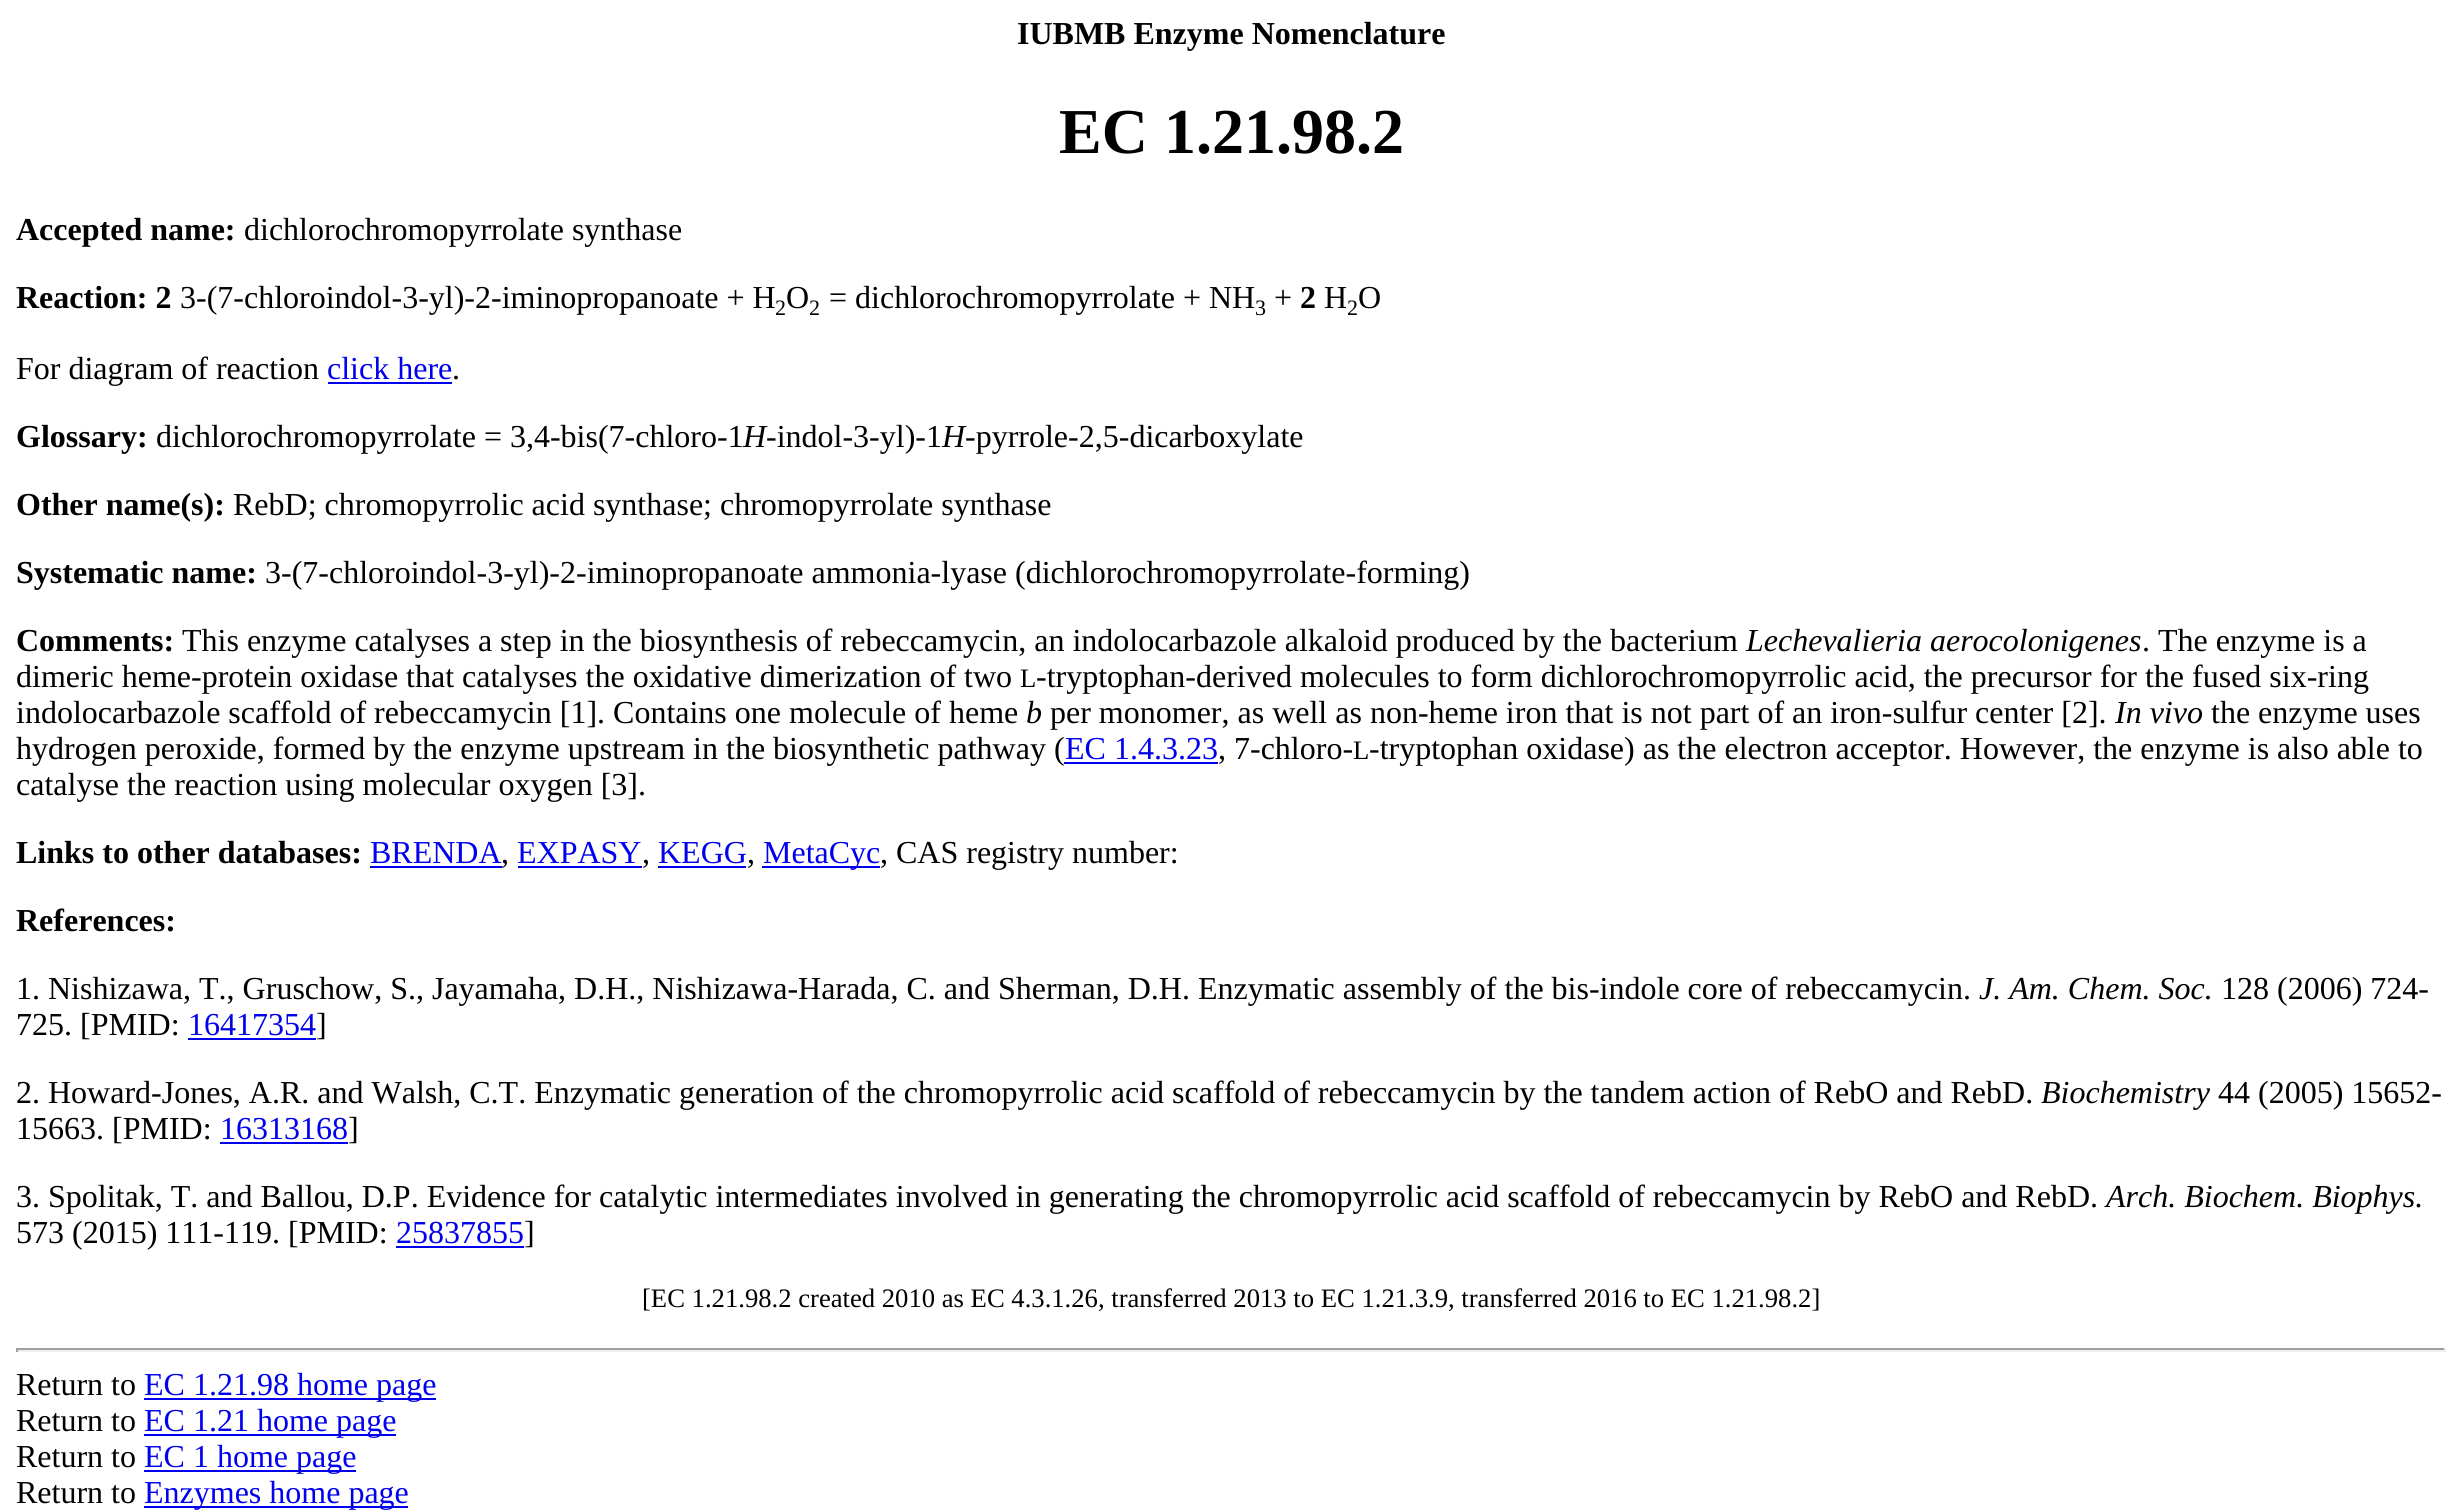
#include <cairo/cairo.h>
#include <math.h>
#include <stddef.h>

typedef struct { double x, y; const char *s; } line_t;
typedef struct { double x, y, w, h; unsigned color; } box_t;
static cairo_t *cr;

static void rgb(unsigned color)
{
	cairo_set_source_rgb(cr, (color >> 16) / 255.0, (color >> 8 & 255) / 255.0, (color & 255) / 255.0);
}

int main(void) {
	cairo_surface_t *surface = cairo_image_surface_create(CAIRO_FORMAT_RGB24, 2461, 1511);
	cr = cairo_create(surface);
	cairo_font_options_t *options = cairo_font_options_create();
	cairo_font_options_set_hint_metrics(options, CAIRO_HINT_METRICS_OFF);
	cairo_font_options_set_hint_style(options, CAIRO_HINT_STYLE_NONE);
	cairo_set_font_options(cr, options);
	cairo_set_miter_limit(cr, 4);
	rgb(0xffffff);
	cairo_paint(cr);
	{
		static const box_t items[] = {
			{328, 382, 124, 2, 0x0000ee},
			{1064, 762, 154, 2, 0x0000ee},
			{370, 866, 132, 2, 0x0000ee},
			{518, 866, 124, 2, 0x0000ee},
			{658, 866, 88, 2, 0x0000ee},
			{762, 866, 118, 2, 0x0000ee},
			{188, 1038, 128, 2, 0x0000ee},
			{220, 1142, 128, 2, 0x0000ee},
			{396, 1246, 128, 2, 0x0000ee},
			{16, 1348, 2430, 2, 0x9f9f9f},
			{2444, 1348, 2, 4, 0xeeeeee},
			{16, 1350, 2430, 2, 0xeeeeee},
			{16, 1348, 2, 4, 0x9f9f9f},
			{144, 1398, 292, 2, 0x0000ee},
			{144, 1434, 252, 2, 0x0000ee},
			{144, 1470, 212, 2, 0x0000ee},
			{144, 1506, 264, 2, 0x0000ee},
		};
		for (size_t i = 0; i < sizeof items / sizeof *items; i++) {
			rgb(items[i].color);
			cairo_rectangle(cr, items[i].x, items[i].y, items[i].w, items[i].h);
			cairo_fill(cr);
		}
	}
	cairo_select_font_face(cr, "Liberation Serif", CAIRO_FONT_SLANT_NORMAL, CAIRO_FONT_WEIGHT_BOLD);
	cairo_set_font_size(cr, 32);
	rgb(0x000000);
	cairo_move_to(cr, 1017, 44);
	cairo_show_text(cr, "IUBMB Enzyme Nomenclature");
	cairo_set_font_size(cr, 64);
	cairo_move_to(cr, 1059, 153);
	cairo_show_text(cr, "EC 1.21.98.2");
	cairo_set_font_size(cr, 32);
	cairo_move_to(cr, 16, 240);
	cairo_show_text(cr, "Accepted name:");
	cairo_select_font_face(cr, "Liberation Serif", CAIRO_FONT_SLANT_NORMAL, CAIRO_FONT_WEIGHT_NORMAL);
	cairo_move_to(cr, 244, 240);
	cairo_show_text(cr, "dichlorochromopyrrolate synthase");
	cairo_select_font_face(cr, "Liberation Serif", CAIRO_FONT_SLANT_NORMAL, CAIRO_FONT_WEIGHT_BOLD);
	cairo_move_to(cr, 16, 308);
	cairo_show_text(cr, "Reaction: 2");
	cairo_select_font_face(cr, "Liberation Serif", CAIRO_FONT_SLANT_NORMAL, CAIRO_FONT_WEIGHT_NORMAL);
	{
		static const line_t items[] = {
			{180, 308, "3-(7-chloroindol-3-yl)-2-iminopropanoate + H"},
			{786, 308, "O"},
			{829, 308, "= dichlorochromopyrrolate + NH"},
			{1274, 308, "+"},
		};
		for (size_t i = 0; i < sizeof items / sizeof *items; i++) {
			cairo_move_to(cr, items[i].x, items[i].y);
			cairo_show_text(cr, items[i].s);
		}
	}
	cairo_select_font_face(cr, "Liberation Serif", CAIRO_FONT_SLANT_NORMAL, CAIRO_FONT_WEIGHT_BOLD);
	cairo_move_to(cr, 1300, 308);
	cairo_show_text(cr, "2");
	cairo_select_font_face(cr, "Liberation Serif", CAIRO_FONT_SLANT_NORMAL, CAIRO_FONT_WEIGHT_NORMAL);
	cairo_move_to(cr, 1324, 308);
	cairo_show_text(cr, "H");
	cairo_move_to(cr, 1358, 308);
	cairo_show_text(cr, "O");
	cairo_set_font_size(cr, 22);
	{
		static const line_t items[] = {
			{775, 315, "2"},
			{809, 315, "2"},
			{1255, 315, "3"},
			{1347, 315, "2"},
		};
		for (size_t i = 0; i < sizeof items / sizeof *items; i++) {
			cairo_move_to(cr, items[i].x, items[i].y);
			cairo_show_text(cr, items[i].s);
		}
	}
	cairo_set_font_size(cr, 32);
	cairo_move_to(cr, 16, 379);
	cairo_show_text(cr, "For diagram of reaction");
	rgb(0x0000ee);
	cairo_move_to(cr, 327, 379);
	cairo_show_text(cr, "click here");
	rgb(0x000000);
	cairo_move_to(cr, 452, 379);
	cairo_show_text(cr, ".");
	cairo_select_font_face(cr, "Liberation Serif", CAIRO_FONT_SLANT_NORMAL, CAIRO_FONT_WEIGHT_BOLD);
	cairo_move_to(cr, 16, 447);
	cairo_show_text(cr, "Glossary:");
	cairo_select_font_face(cr, "Liberation Serif", CAIRO_FONT_SLANT_NORMAL, CAIRO_FONT_WEIGHT_NORMAL);
	cairo_move_to(cr, 156, 447);
	cairo_show_text(cr, "dichlorochromopyrrolate = 3,4-bis(7-chloro-1");
	cairo_select_font_face(cr, "Liberation Serif", CAIRO_FONT_SLANT_ITALIC, CAIRO_FONT_WEIGHT_NORMAL);
	cairo_move_to(cr, 743, 447);
	cairo_show_text(cr, "H");
	cairo_select_font_face(cr, "Liberation Serif", CAIRO_FONT_SLANT_NORMAL, CAIRO_FONT_WEIGHT_NORMAL);
	cairo_move_to(cr, 766, 447);
	cairo_show_text(cr, "-indol-3-yl)-1");
	cairo_select_font_face(cr, "Liberation Serif", CAIRO_FONT_SLANT_ITALIC, CAIRO_FONT_WEIGHT_NORMAL);
	cairo_move_to(cr, 942, 447);
	cairo_show_text(cr, "H");
	cairo_select_font_face(cr, "Liberation Serif", CAIRO_FONT_SLANT_NORMAL, CAIRO_FONT_WEIGHT_NORMAL);
	cairo_move_to(cr, 965, 447);
	cairo_show_text(cr, "-pyrrole-2,5-dicarboxylate");
	cairo_select_font_face(cr, "Liberation Serif", CAIRO_FONT_SLANT_NORMAL, CAIRO_FONT_WEIGHT_BOLD);
	cairo_move_to(cr, 16, 515);
	cairo_show_text(cr, "Other name(s):");
	cairo_select_font_face(cr, "Liberation Serif", CAIRO_FONT_SLANT_NORMAL, CAIRO_FONT_WEIGHT_NORMAL);
	cairo_move_to(cr, 233, 515);
	cairo_show_text(cr, "RebD; chromopyrrolic acid synthase; chromopyrrolate synthase");
	cairo_select_font_face(cr, "Liberation Serif", CAIRO_FONT_SLANT_NORMAL, CAIRO_FONT_WEIGHT_BOLD);
	cairo_move_to(cr, 16, 583);
	cairo_show_text(cr, "Systematic name:");
	cairo_select_font_face(cr, "Liberation Serif", CAIRO_FONT_SLANT_NORMAL, CAIRO_FONT_WEIGHT_NORMAL);
	cairo_move_to(cr, 265, 583);
	cairo_show_text(cr, "3-(7-chloroindol-3-yl)-2-iminopropanoate ammonia-lyase (dichlorochromopyrrolate-forming)");
	cairo_select_font_face(cr, "Liberation Serif", CAIRO_FONT_SLANT_NORMAL, CAIRO_FONT_WEIGHT_BOLD);
	cairo_move_to(cr, 16, 651);
	cairo_show_text(cr, "Comments:");
	cairo_select_font_face(cr, "Liberation Serif", CAIRO_FONT_SLANT_NORMAL, CAIRO_FONT_WEIGHT_NORMAL);
	cairo_move_to(cr, 182, 651);
	cairo_show_text(cr, "This enzyme catalyses a step in the biosynthesis of rebeccamycin, an indolocarbazole alkaloid produced by the bacterium");
	cairo_select_font_face(cr, "Liberation Serif", CAIRO_FONT_SLANT_ITALIC, CAIRO_FONT_WEIGHT_NORMAL);
	cairo_move_to(cr, 1746, 651);
	cairo_show_text(cr, "Lechevalieria aerocolonigenes");
	cairo_select_font_face(cr, "Liberation Serif", CAIRO_FONT_SLANT_NORMAL, CAIRO_FONT_WEIGHT_NORMAL);
	cairo_move_to(cr, 2142, 651);
	cairo_show_text(cr, ". The enzyme is a");
	cairo_move_to(cr, 16, 687);
	cairo_show_text(cr, "dimeric heme-protein oxidase that catalyses the oxidative dimerization of two");
	cairo_set_font_size(cr, 26.65);
	cairo_move_to(cr, 1020, 687);
	cairo_show_text(cr, "L");
	cairo_set_font_size(cr, 32);
	cairo_move_to(cr, 1036, 687);
	cairo_show_text(cr, "-tryptophan-derived molecules to form dichlorochromopyrrolic acid, the precursor for the fused six-ring");
	cairo_move_to(cr, 16, 723);
	cairo_show_text(cr, "indolocarbazole scaffold of rebeccamycin [1]. Contains one molecule of heme");
	cairo_select_font_face(cr, "Liberation Serif", CAIRO_FONT_SLANT_ITALIC, CAIRO_FONT_WEIGHT_NORMAL);
	cairo_move_to(cr, 1026, 723);
	cairo_show_text(cr, "b");
	cairo_select_font_face(cr, "Liberation Serif", CAIRO_FONT_SLANT_NORMAL, CAIRO_FONT_WEIGHT_NORMAL);
	cairo_move_to(cr, 1050, 723);
	cairo_show_text(cr, "per monomer, as well as non-heme iron that is not part of an iron-sulfur center [2].");
	cairo_select_font_face(cr, "Liberation Serif", CAIRO_FONT_SLANT_ITALIC, CAIRO_FONT_WEIGHT_NORMAL);
	cairo_move_to(cr, 2115, 723);
	cairo_show_text(cr, "In vivo");
	cairo_select_font_face(cr, "Liberation Serif", CAIRO_FONT_SLANT_NORMAL, CAIRO_FONT_WEIGHT_NORMAL);
	cairo_move_to(cr, 2211, 723);
	cairo_show_text(cr, "the enzyme uses");
	cairo_move_to(cr, 16, 759);
	cairo_show_text(cr, "hydrogen peroxide, formed by the enzyme upstream in the biosynthetic pathway (");
	rgb(0x0000ee);
	cairo_move_to(cr, 1065, 759);
	cairo_show_text(cr, "EC 1.4.3.23");
	rgb(0x000000);
	cairo_move_to(cr, 1218, 759);
	cairo_show_text(cr, ", 7-chloro-");
	cairo_set_font_size(cr, 26.65);
	cairo_move_to(cr, 1353, 759);
	cairo_show_text(cr, "L");
	cairo_set_font_size(cr, 32);
	cairo_move_to(cr, 1369, 759);
	cairo_show_text(cr, "-tryptophan oxidase) as the electron acceptor. However, the enzyme is also able to");
	cairo_move_to(cr, 16, 795);
	cairo_show_text(cr, "catalyse the reaction using molecular oxygen [3].");
	cairo_select_font_face(cr, "Liberation Serif", CAIRO_FONT_SLANT_NORMAL, CAIRO_FONT_WEIGHT_BOLD);
	cairo_move_to(cr, 16, 863);
	cairo_show_text(cr, "Links to other databases:");
	cairo_select_font_face(cr, "Liberation Serif", CAIRO_FONT_SLANT_NORMAL, CAIRO_FONT_WEIGHT_NORMAL);
	rgb(0x0000ee);
	cairo_move_to(cr, 370, 863);
	cairo_show_text(cr, "BRENDA");
	rgb(0x000000);
	cairo_move_to(cr, 501, 863);
	cairo_show_text(cr, ",");
	rgb(0x0000ee);
	cairo_move_to(cr, 517, 863);
	cairo_show_text(cr, "EXPASY");
	rgb(0x000000);
	cairo_move_to(cr, 642, 863);
	cairo_show_text(cr, ",");
	rgb(0x0000ee);
	cairo_move_to(cr, 658, 863);
	cairo_show_text(cr, "KEGG");
	rgb(0x000000);
	cairo_move_to(cr, 747, 863);
	cairo_show_text(cr, ",");
	rgb(0x0000ee);
	cairo_move_to(cr, 763, 863);
	cairo_show_text(cr, "MetaCyc");
	rgb(0x000000);
	cairo_move_to(cr, 880, 863);
	cairo_show_text(cr, ", CAS registry number:");
	cairo_select_font_face(cr, "Liberation Serif", CAIRO_FONT_SLANT_NORMAL, CAIRO_FONT_WEIGHT_BOLD);
	cairo_move_to(cr, 16, 931);
	cairo_show_text(cr, "References:");
	cairo_select_font_face(cr, "Liberation Serif", CAIRO_FONT_SLANT_NORMAL, CAIRO_FONT_WEIGHT_NORMAL);
	cairo_move_to(cr, 16, 999);
	cairo_show_text(cr, "1. Nishizawa, T., Gruschow, S., Jayamaha, D.H., Nishizawa-Harada, C. and Sherman, D.H. Enzymatic assembly of the bis-indole core of rebeccamycin.");
	cairo_select_font_face(cr, "Liberation Serif", CAIRO_FONT_SLANT_ITALIC, CAIRO_FONT_WEIGHT_NORMAL);
	cairo_move_to(cr, 1979, 999);
	cairo_show_text(cr, "J. Am. Chem. Soc.");
	cairo_select_font_face(cr, "Liberation Serif", CAIRO_FONT_SLANT_NORMAL, CAIRO_FONT_WEIGHT_NORMAL);
	cairo_move_to(cr, 2221, 999);
	cairo_show_text(cr, "128 (2006) 724-");
	cairo_move_to(cr, 16, 1035);
	cairo_show_text(cr, "725. [PMID:");
	rgb(0x0000ee);
	cairo_move_to(cr, 188, 1035);
	cairo_show_text(cr, "16417354");
	rgb(0x000000);
	cairo_move_to(cr, 316, 1035);
	cairo_show_text(cr, "]");
	cairo_move_to(cr, 16, 1103);
	cairo_show_text(cr, "2. Howard-Jones, A.R. and Walsh, C.T. Enzymatic generation of the chromopyrrolic acid scaffold of rebeccamycin by the tandem action of RebO and RebD.");
	cairo_select_font_face(cr, "Liberation Serif", CAIRO_FONT_SLANT_ITALIC, CAIRO_FONT_WEIGHT_NORMAL);
	cairo_move_to(cr, 2041, 1103);
	cairo_show_text(cr, "Biochemistry");
	cairo_select_font_face(cr, "Liberation Serif", CAIRO_FONT_SLANT_NORMAL, CAIRO_FONT_WEIGHT_NORMAL);
	cairo_move_to(cr, 2218, 1103);
	cairo_show_text(cr, "44 (2005) 15652-");
	cairo_move_to(cr, 16, 1139);
	cairo_show_text(cr, "15663. [PMID:");
	rgb(0x0000ee);
	cairo_move_to(cr, 220, 1139);
	cairo_show_text(cr, "16313168");
	rgb(0x000000);
	cairo_move_to(cr, 348, 1139);
	cairo_show_text(cr, "]");
	cairo_move_to(cr, 16, 1207);
	cairo_show_text(cr, "3. Spolitak, T. and Ballou, D.P. Evidence for catalytic intermediates involved in generating the chromopyrrolic acid scaffold of rebeccamycin by RebO and RebD.");
	cairo_select_font_face(cr, "Liberation Serif", CAIRO_FONT_SLANT_ITALIC, CAIRO_FONT_WEIGHT_NORMAL);
	cairo_move_to(cr, 2106, 1207);
	cairo_show_text(cr, "Arch. Biochem. Biophys.");
	cairo_select_font_face(cr, "Liberation Serif", CAIRO_FONT_SLANT_NORMAL, CAIRO_FONT_WEIGHT_NORMAL);
	cairo_move_to(cr, 16, 1243);
	cairo_show_text(cr, "573 (2015) 111-119. [PMID:");
	rgb(0x0000ee);
	cairo_move_to(cr, 396, 1243);
	cairo_show_text(cr, "25837855");
	rgb(0x000000);
	cairo_move_to(cr, 524, 1243);
	cairo_show_text(cr, "]");
	cairo_set_font_size(cr, 26.65);
	cairo_move_to(cr, 642, 1307);
	cairo_show_text(cr, "[EC 1.21.98.2 created 2010 as EC 4.3.1.26, transferred 2013 to EC 1.21.3.9, transferred 2016 to EC 1.21.98.2]");
	cairo_set_font_size(cr, 32);
	cairo_move_to(cr, 16, 1395);
	cairo_show_text(cr, "Return to");
	rgb(0x0000ee);
	cairo_move_to(cr, 144, 1395);
	cairo_show_text(cr, "EC 1.21.98 home page");
	rgb(0x000000);
	cairo_move_to(cr, 16, 1431);
	cairo_show_text(cr, "Return to");
	rgb(0x0000ee);
	cairo_move_to(cr, 144, 1431);
	cairo_show_text(cr, "EC 1.21 home page");
	rgb(0x000000);
	cairo_move_to(cr, 16, 1467);
	cairo_show_text(cr, "Return to");
	rgb(0x0000ee);
	cairo_move_to(cr, 144, 1467);
	cairo_show_text(cr, "EC 1 home page");
	rgb(0x000000);
	cairo_move_to(cr, 16, 1503);
	cairo_show_text(cr, "Return to");
	rgb(0x0000ee);
	cairo_move_to(cr, 144, 1503);
	cairo_show_text(cr, "Enzymes home page");
	cairo_surface_write_to_png(surface, "page.png");
	cairo_font_options_destroy(options);
	cairo_destroy(cr);
	cairo_surface_destroy(surface);
	return 0;
}
